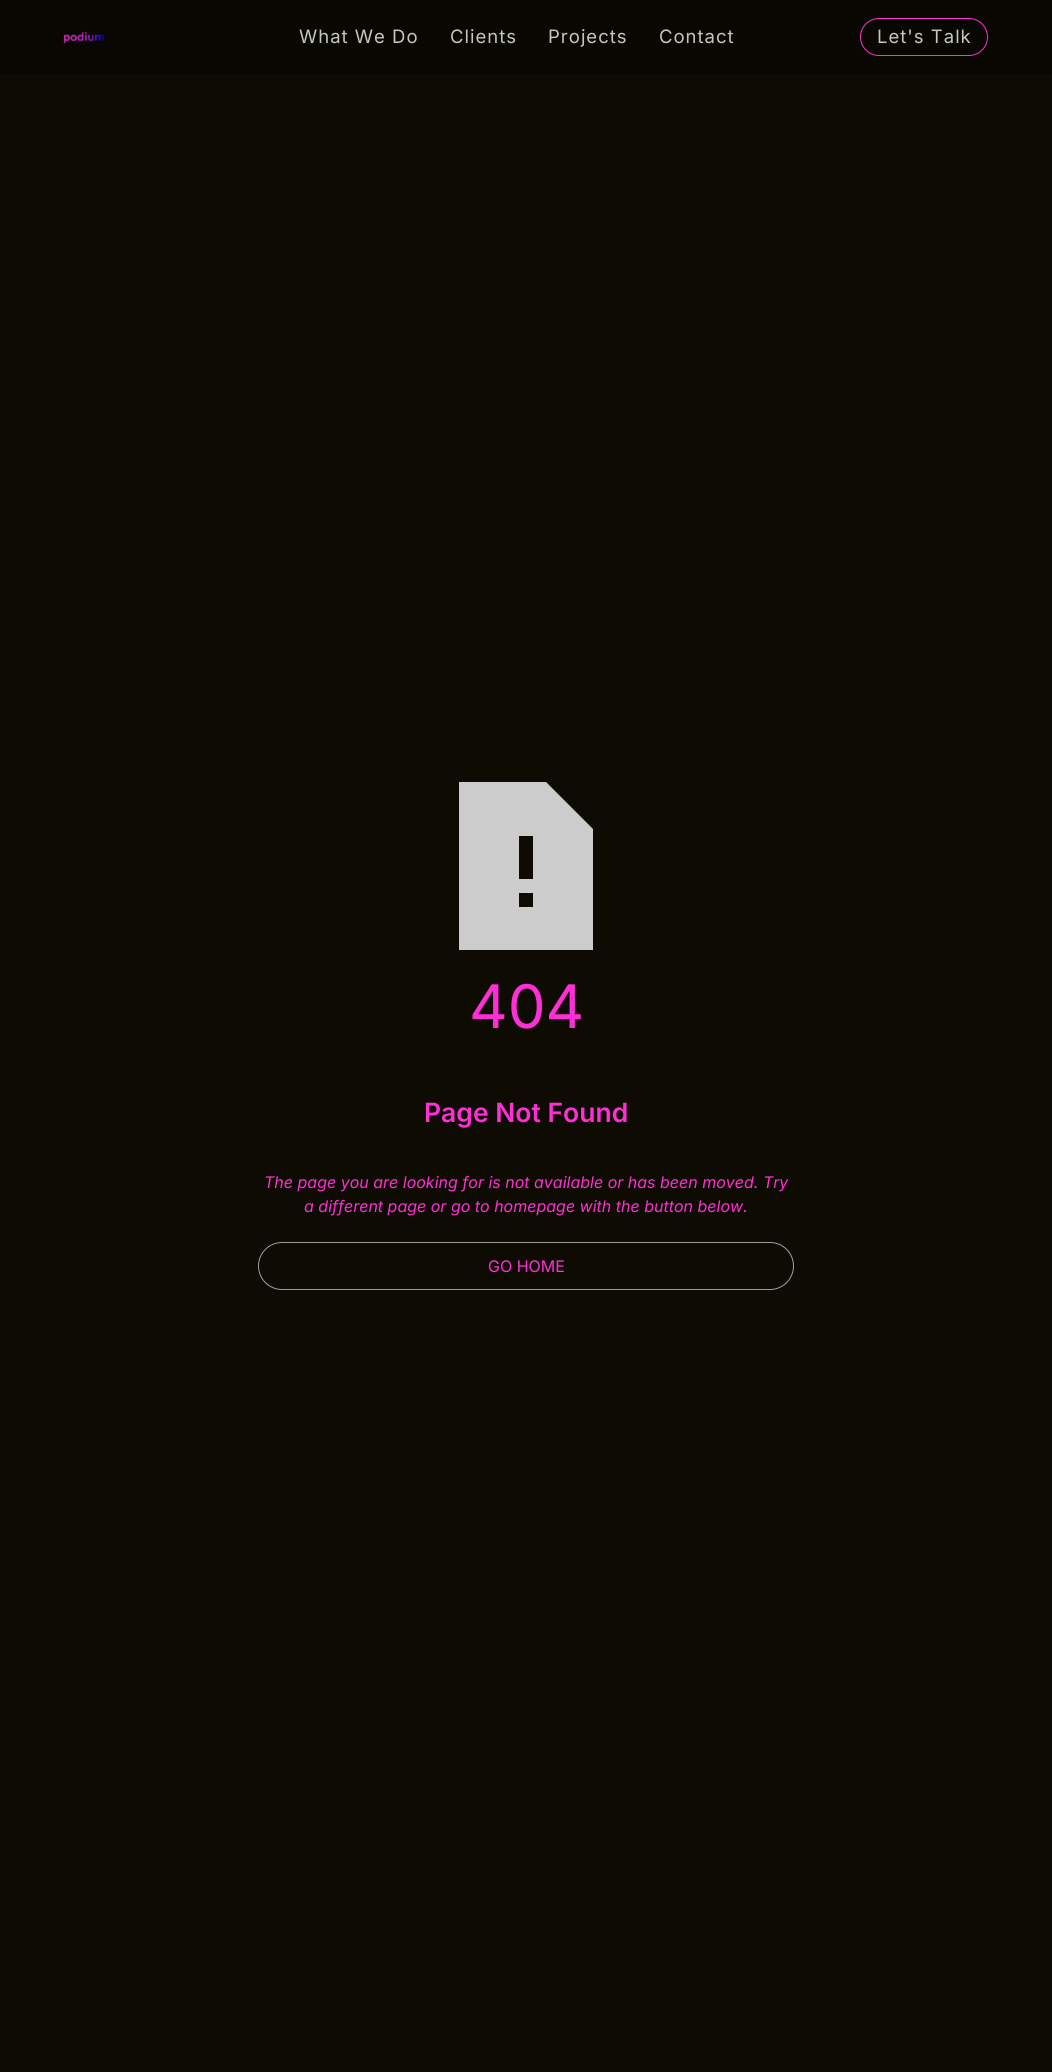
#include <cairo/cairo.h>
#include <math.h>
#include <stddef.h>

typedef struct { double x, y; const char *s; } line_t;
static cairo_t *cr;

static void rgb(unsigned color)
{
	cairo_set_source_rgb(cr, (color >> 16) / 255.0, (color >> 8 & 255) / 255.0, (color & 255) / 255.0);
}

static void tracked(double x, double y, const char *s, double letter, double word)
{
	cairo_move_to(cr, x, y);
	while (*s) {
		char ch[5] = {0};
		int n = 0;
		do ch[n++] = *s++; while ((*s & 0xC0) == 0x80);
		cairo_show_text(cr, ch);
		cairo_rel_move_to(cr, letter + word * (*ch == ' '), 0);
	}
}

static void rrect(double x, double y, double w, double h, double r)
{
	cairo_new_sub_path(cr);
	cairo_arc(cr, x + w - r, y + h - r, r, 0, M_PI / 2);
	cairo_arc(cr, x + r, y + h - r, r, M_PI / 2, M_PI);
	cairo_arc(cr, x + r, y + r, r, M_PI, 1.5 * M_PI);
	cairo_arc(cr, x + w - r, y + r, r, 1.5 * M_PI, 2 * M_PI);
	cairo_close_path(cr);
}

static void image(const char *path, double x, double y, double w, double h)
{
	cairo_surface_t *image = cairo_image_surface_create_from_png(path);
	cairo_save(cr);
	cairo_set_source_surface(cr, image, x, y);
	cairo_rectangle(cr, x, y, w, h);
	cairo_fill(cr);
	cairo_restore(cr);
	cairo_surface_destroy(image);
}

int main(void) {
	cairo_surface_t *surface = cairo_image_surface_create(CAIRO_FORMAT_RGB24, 1052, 2072);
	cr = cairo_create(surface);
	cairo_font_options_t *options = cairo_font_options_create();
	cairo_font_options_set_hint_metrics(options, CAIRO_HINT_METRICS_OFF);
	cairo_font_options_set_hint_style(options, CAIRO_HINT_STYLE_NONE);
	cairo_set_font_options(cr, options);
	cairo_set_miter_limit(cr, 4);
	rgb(0x0d0b02);
	cairo_paint(cr);
	rgb(0x080701);
	cairo_rectangle(cr, 0, 0, 1052, 75);
	cairo_fill(cr);
	image("img/1.png", 63, 31, 41, 13);
	rrect(860.5, 18.5, 127, 37, 18.5);
	rgb(0xff2ed7);
	cairo_set_line_width(cr, 1);
	cairo_stroke(cr);
	rgb(0xcccccc);
	cairo_set_fill_rule(cr, CAIRO_FILL_RULE_EVEN_ODD);
	cairo_new_path(cr);
	cairo_move_to(cr, 459, 782);
	cairo_line_to(cr, 546, 782);
	cairo_line_to(cr, 593, 829);
	cairo_line_to(cr, 593, 950);
	cairo_line_to(cr, 459, 950);
	cairo_close_path(cr);
	cairo_move_to(cr, 519, 836);
	cairo_line_to(cr, 533, 836);
	cairo_line_to(cr, 533, 879);
	cairo_line_to(cr, 519, 879);
	cairo_close_path(cr);
	cairo_move_to(cr, 519, 893);
	cairo_line_to(cr, 533, 893);
	cairo_line_to(cr, 533, 907);
	cairo_line_to(cr, 519, 907);
	cairo_close_path(cr);
	cairo_fill(cr);
	rrect(258.5, 1242.5, 535, 47, 23.5);
	rgb(0x9e9e9e);
	cairo_stroke(cr);
	cairo_select_font_face(cr, "Inter", CAIRO_FONT_SLANT_NORMAL, CAIRO_FONT_WEIGHT_NORMAL);
	cairo_set_font_size(cr, 18.5);
	rgb(0xc5c5c5);
	{
		static const line_t items[] = {
			{299, 43, "What We Do"},
			{450, 43, "Clients"},
			{548, 43, "Projects"},
			{659, 43, "Contact"},
			{877, 43, "Let's Talk"},
		};
		for (size_t i = 0; i < sizeof items / sizeof *items; i++) {
			tracked(items[i].x, items[i].y, items[i].s, 1, 0);
		}
	}
	cairo_set_font_size(cr, 60);
	rgb(0xff2ed7);
	cairo_move_to(cr, 469, 1028);
	cairo_show_text(cr, "404");
	cairo_select_font_face(cr, "Inter SemiBold", CAIRO_FONT_SLANT_NORMAL, CAIRO_FONT_WEIGHT_NORMAL);
	cairo_set_font_size(cr, 26.5);
	cairo_move_to(cr, 424, 1122);
	cairo_show_text(cr, "Page Not Found");
	cairo_select_font_face(cr, "Inter", CAIRO_FONT_SLANT_ITALIC, CAIRO_FONT_WEIGHT_NORMAL);
	cairo_set_font_size(cr, 16);
	cairo_move_to(cr, 264, 1188);
	cairo_show_text(cr, "The page you are looking for is not available or has been moved. Try");
	cairo_move_to(cr, 304, 1212);
	cairo_show_text(cr, "a different page or go to homepage with the button below.");
	cairo_select_font_face(cr, "Inter", CAIRO_FONT_SLANT_NORMAL, CAIRO_FONT_WEIGHT_NORMAL);
	cairo_move_to(cr, 488, 1272);
	cairo_show_text(cr, "GO HOME");
	cairo_surface_write_to_png(surface, "page.png");
	cairo_font_options_destroy(options);
	cairo_destroy(cr);
	cairo_surface_destroy(surface);
	return 0;
}
